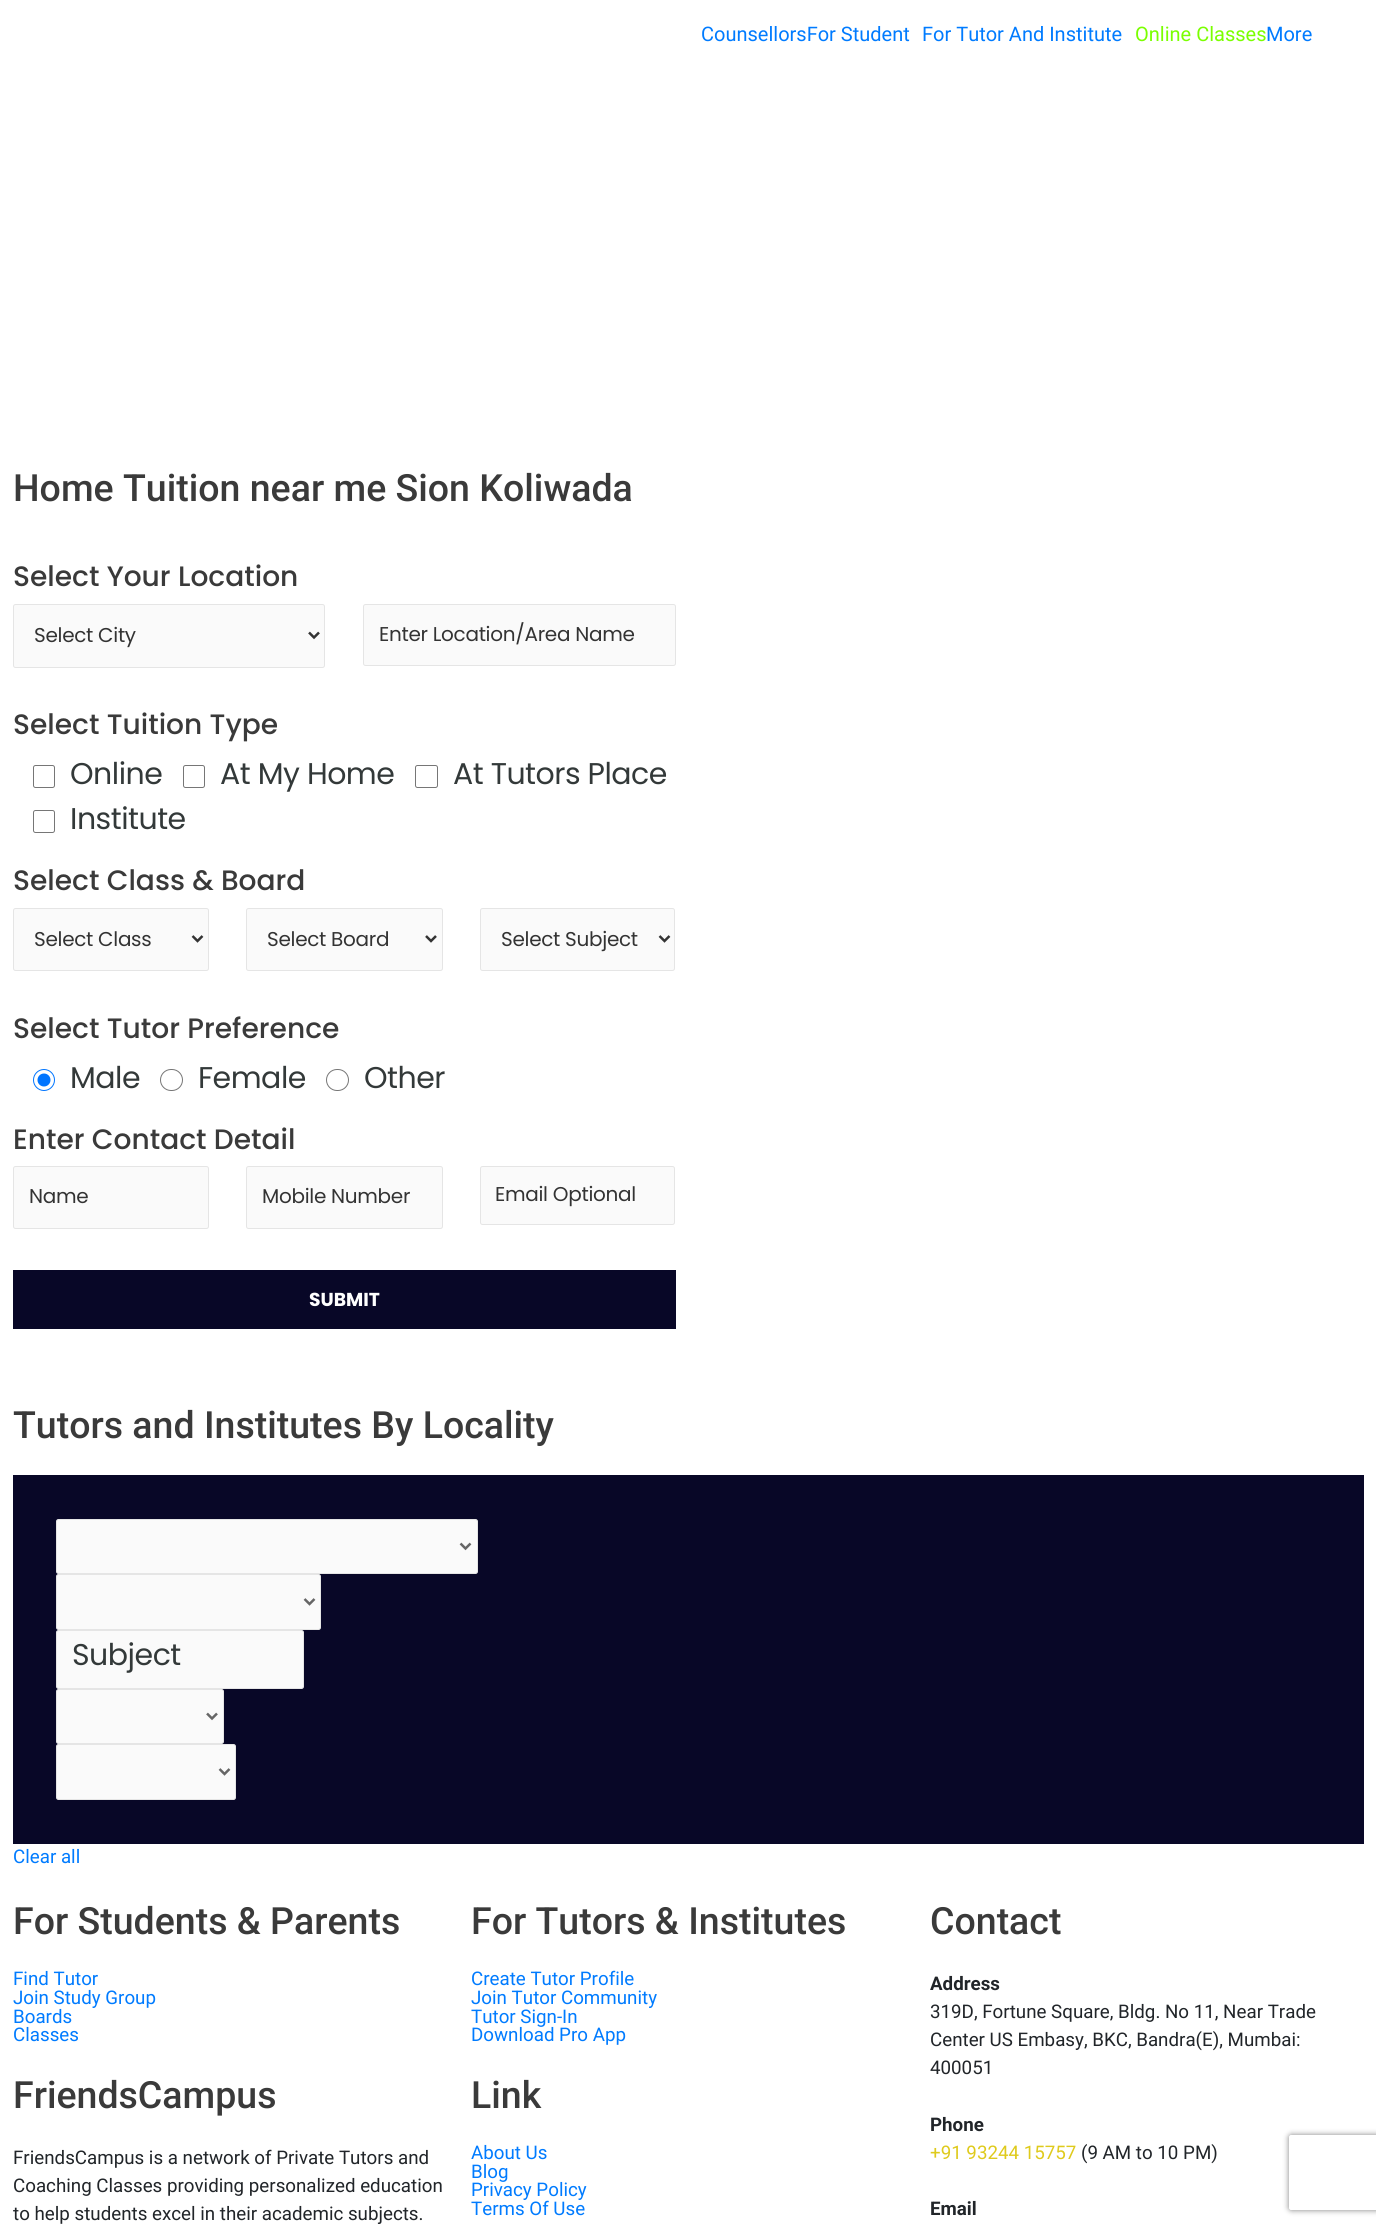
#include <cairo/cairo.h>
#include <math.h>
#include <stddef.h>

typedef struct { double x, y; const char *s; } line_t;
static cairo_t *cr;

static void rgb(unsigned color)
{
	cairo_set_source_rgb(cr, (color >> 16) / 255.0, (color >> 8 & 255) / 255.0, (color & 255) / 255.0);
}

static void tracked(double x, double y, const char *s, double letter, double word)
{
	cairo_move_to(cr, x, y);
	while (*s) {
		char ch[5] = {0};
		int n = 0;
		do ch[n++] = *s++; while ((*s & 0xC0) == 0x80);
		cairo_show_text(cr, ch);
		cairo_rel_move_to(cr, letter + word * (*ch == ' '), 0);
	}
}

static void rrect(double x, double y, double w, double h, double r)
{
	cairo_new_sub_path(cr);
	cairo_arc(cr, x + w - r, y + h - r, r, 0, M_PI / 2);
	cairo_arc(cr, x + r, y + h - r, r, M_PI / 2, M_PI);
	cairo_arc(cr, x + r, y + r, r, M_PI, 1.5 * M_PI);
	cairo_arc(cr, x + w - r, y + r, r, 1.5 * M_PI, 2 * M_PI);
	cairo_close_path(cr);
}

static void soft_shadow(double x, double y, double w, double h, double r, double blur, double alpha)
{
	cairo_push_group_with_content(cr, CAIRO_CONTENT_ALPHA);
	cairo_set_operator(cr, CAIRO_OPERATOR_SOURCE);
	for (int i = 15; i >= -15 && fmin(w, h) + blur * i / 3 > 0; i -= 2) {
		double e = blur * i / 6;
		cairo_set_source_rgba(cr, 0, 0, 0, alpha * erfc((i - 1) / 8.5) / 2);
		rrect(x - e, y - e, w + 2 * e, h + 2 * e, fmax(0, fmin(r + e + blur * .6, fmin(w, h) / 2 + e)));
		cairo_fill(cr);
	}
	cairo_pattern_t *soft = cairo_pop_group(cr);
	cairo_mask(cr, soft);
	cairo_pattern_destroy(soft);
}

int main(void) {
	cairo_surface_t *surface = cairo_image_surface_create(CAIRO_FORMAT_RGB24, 1376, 2227);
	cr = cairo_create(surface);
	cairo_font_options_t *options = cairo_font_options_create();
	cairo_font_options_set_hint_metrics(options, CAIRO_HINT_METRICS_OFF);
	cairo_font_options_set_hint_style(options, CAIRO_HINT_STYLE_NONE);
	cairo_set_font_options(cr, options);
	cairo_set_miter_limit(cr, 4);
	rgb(0xffffff);
	cairo_paint(cr);
	rgb(0xfafafa);
	rrect(13.5, 604.5, 311, 63, 2);
	cairo_fill_preserve(cr);
	rgb(0xe5e5e5);
	cairo_set_line_width(cr, 1);
	cairo_stroke(cr);
	cairo_new_path(cr);
	cairo_move_to(cr, 309, 632.5);
	cairo_line_to(cr, 314, 637.5);
	cairo_line_to(cr, 319, 632.5);
	rgb(0x333333);
	cairo_set_line_width(cr, 2.5);
	cairo_stroke(cr);
	rgb(0xfafafa);
	rrect(363.5, 604.5, 312, 61, 2);
	cairo_fill_preserve(cr);
	rgb(0xe5e5e5);
	cairo_set_line_width(cr, 1);
	cairo_stroke(cr);
	rrect(33.5, 765.5, 21, 22, 2);
	rgb(0x767676);
	cairo_stroke(cr);
	rrect(183.5, 765.5, 21, 22, 2);
	cairo_stroke(cr);
	rrect(415.5, 765.5, 22, 22, 2);
	cairo_stroke(cr);
	rrect(33.5, 810.5, 21, 22, 2);
	cairo_stroke(cr);
	rgb(0xfafafa);
	rrect(13.5, 908.5, 195, 62, 2);
	cairo_fill_preserve(cr);
	rgb(0xe5e5e5);
	cairo_stroke(cr);
	cairo_new_path(cr);
	cairo_move_to(cr, 192.5, 936);
	cairo_line_to(cr, 197.5, 941);
	cairo_line_to(cr, 202.5, 936);
	rgb(0x333333);
	cairo_set_line_width(cr, 2.5);
	cairo_stroke(cr);
	rgb(0xfafafa);
	rrect(246.5, 908.5, 196, 62, 2);
	cairo_fill_preserve(cr);
	rgb(0xe5e5e5);
	cairo_set_line_width(cr, 1);
	cairo_stroke(cr);
	cairo_new_path(cr);
	cairo_move_to(cr, 426, 936);
	cairo_line_to(cr, 431, 941);
	cairo_line_to(cr, 436, 936);
	rgb(0x333333);
	cairo_set_line_width(cr, 2.5);
	cairo_stroke(cr);
	rgb(0xfafafa);
	rrect(480.5, 908.5, 194, 62, 2);
	cairo_fill_preserve(cr);
	rgb(0xe5e5e5);
	cairo_set_line_width(cr, 1);
	cairo_stroke(cr);
	cairo_new_path(cr);
	cairo_move_to(cr, 659.5, 936);
	cairo_line_to(cr, 664.5, 941);
	cairo_line_to(cr, 669.5, 936);
	rgb(0x333333);
	cairo_set_line_width(cr, 2.5);
	cairo_stroke(cr);
	cairo_arc(cr, 44, 1080, 10.5, 0, 2 * M_PI);
	rgb(0x0075ff);
	cairo_set_line_width(cr, 1);
	cairo_stroke(cr);
	cairo_arc(cr, 44, 1080, 6.5, 0, 2 * M_PI);
	cairo_fill(cr);
	rrect(160.5, 1069.5, 22, 21, 10.5);
	rgb(0x767676);
	cairo_stroke(cr);
	rrect(326.5, 1069.5, 22, 21, 10.5);
	cairo_stroke(cr);
	rgb(0xfafafa);
	rrect(13.5, 1166.5, 195, 62, 2);
	cairo_fill_preserve(cr);
	rgb(0xe5e5e5);
	cairo_stroke(cr);
	rgb(0xfafafa);
	rrect(246.5, 1166.5, 196, 62, 2);
	cairo_fill_preserve(cr);
	rgb(0xe5e5e5);
	cairo_stroke(cr);
	rgb(0xfafafa);
	rrect(480.5, 1166.5, 194, 58, 2);
	cairo_fill_preserve(cr);
	rgb(0xe5e5e5);
	cairo_stroke(cr);
	rgb(0x080727);
	cairo_rectangle(cr, 13, 1270, 663, 59);
	cairo_fill(cr);
	cairo_rectangle(cr, 13, 1475, 1351, 369);
	cairo_fill(cr);
	rgb(0xfafafa);
	rrect(56.5, 1519.5, 421, 54, 2);
	cairo_fill_preserve(cr);
	rgb(0xe5e5e5);
	cairo_stroke(cr);
	cairo_new_path(cr);
	cairo_move_to(cr, 460.5, 1543.5);
	cairo_line_to(cr, 465.5, 1548.5);
	cairo_line_to(cr, 470.5, 1543.5);
	rgb(0x666666);
	cairo_set_line_width(cr, 2.5);
	cairo_stroke(cr);
	rgb(0xfafafa);
	rrect(56.5, 1574.5, 264, 55, 2);
	cairo_fill_preserve(cr);
	rgb(0xe5e5e5);
	cairo_set_line_width(cr, 1);
	cairo_stroke(cr);
	cairo_new_path(cr);
	cairo_move_to(cr, 304.5, 1599);
	cairo_line_to(cr, 309.5, 1604);
	cairo_line_to(cr, 314.5, 1599);
	rgb(0x666666);
	cairo_set_line_width(cr, 2.5);
	cairo_stroke(cr);
	rgb(0xfafafa);
	rrect(56.5, 1630.5, 247, 58, 2);
	cairo_fill_preserve(cr);
	rgb(0xe5e5e5);
	cairo_set_line_width(cr, 1);
	cairo_stroke(cr);
	rgb(0xfafafa);
	rrect(56.5, 1689.5, 167, 54, 2);
	cairo_fill_preserve(cr);
	rgb(0xe5e5e5);
	cairo_stroke(cr);
	cairo_new_path(cr);
	cairo_move_to(cr, 207, 1713.5);
	cairo_line_to(cr, 212, 1718.5);
	cairo_line_to(cr, 217, 1713.5);
	rgb(0x666666);
	cairo_set_line_width(cr, 2.5);
	cairo_stroke(cr);
	rgb(0xfafafa);
	rrect(56.5, 1744.5, 179, 55, 2);
	cairo_fill_preserve(cr);
	rgb(0xe5e5e5);
	cairo_set_line_width(cr, 1);
	cairo_stroke(cr);
	cairo_new_path(cr);
	cairo_move_to(cr, 219.5, 1769);
	cairo_line_to(cr, 224.5, 1774);
	cairo_line_to(cr, 229.5, 1769);
	rgb(0x666666);
	cairo_set_line_width(cr, 2.5);
	cairo_stroke(cr);
	cairo_save(cr);
	cairo_set_fill_rule(cr, CAIRO_FILL_RULE_EVEN_ODD);
	cairo_new_path(cr);
	cairo_move_to(cr, 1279, 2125);
	cairo_line_to(cr, 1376, 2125);
	cairo_line_to(cr, 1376, 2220);
	cairo_line_to(cr, 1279, 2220);
	cairo_close_path(cr);
	cairo_move_to(cr, 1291.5, 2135);
	cairo_line_to(cr, 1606.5, 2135);
	cairo_curve_to(cr, 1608, 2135, 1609, 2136, 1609, 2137.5);
	cairo_line_to(cr, 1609, 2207.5);
	cairo_curve_to(cr, 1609, 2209, 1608, 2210, 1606.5, 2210);
	cairo_line_to(cr, 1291.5, 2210);
	cairo_curve_to(cr, 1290, 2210, 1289, 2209, 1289, 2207.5);
	cairo_line_to(cr, 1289, 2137.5);
	cairo_curve_to(cr, 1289, 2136, 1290, 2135, 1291.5, 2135);
	cairo_close_path(cr);
	cairo_clip(cr);
	rgb(0x808080);
	soft_shadow(1289, 2135, 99, 75, 2.5, 3, 1);
	cairo_restore(cr);
	cairo_select_font_face(cr, "Roboto", CAIRO_FONT_SLANT_NORMAL, CAIRO_FONT_WEIGHT_NORMAL);
	cairo_set_font_size(cr, 20);
	rgb(0x007bff);
	cairo_move_to(cr, 701, 41);
	cairo_show_text(cr, "CounsellorsFor Student");
	cairo_move_to(cr, 922, 41);
	cairo_show_text(cr, "For Tutor And Institute");
	rgb(0x7aff00);
	cairo_move_to(cr, 1135, 41);
	cairo_show_text(cr, "Online Classes");
	rgb(0x007bff);
	cairo_move_to(cr, 1266, 41);
	cairo_show_text(cr, "More");
	cairo_select_font_face(cr, "Roboto Medium", CAIRO_FONT_SLANT_NORMAL, CAIRO_FONT_WEIGHT_NORMAL);
	cairo_set_font_size(cr, 37.5);
	rgb(0x3a3a3a);
	cairo_move_to(cr, 13, 501);
	cairo_show_text(cr, "Home Tuition near me Sion Koliwada");
	cairo_select_font_face(cr, "Poppins Medium", CAIRO_FONT_SLANT_NORMAL, CAIRO_FONT_WEIGHT_NORMAL);
	cairo_set_font_size(cr, 28.1);
	cairo_move_to(cr, 13, 586);
	cairo_show_text(cr, "Select Your Location");
	cairo_select_font_face(cr, "Poppins", CAIRO_FONT_SLANT_NORMAL, CAIRO_FONT_WEIGHT_NORMAL);
	cairo_set_font_size(cr, 20);
	rgb(0x333333);
	tracked(34, 642, "Select City", -0.3, 0);
	tracked(379, 641, "Enter Location/Area Name", -0.3, 0);
	cairo_select_font_face(cr, "Poppins Medium", CAIRO_FONT_SLANT_NORMAL, CAIRO_FONT_WEIGHT_NORMAL);
	cairo_set_font_size(cr, 28.1);
	rgb(0x3a3a3a);
	cairo_move_to(cr, 13, 734);
	cairo_show_text(cr, "Select Tuition Type");
	cairo_select_font_face(cr, "Poppins", CAIRO_FONT_SLANT_NORMAL, CAIRO_FONT_WEIGHT_NORMAL);
	cairo_set_font_size(cr, 30);
	rgb(0x333939);
	{
		static const line_t items[] = {
			{70, 784, "Online"},
			{220, 784, "At My Home"},
			{453, 784, "At Tutors Place"},
			{70, 829, "Institute"},
		};
		for (size_t i = 0; i < sizeof items / sizeof *items; i++) {
			tracked(items[i].x, items[i].y, items[i].s, -0.5, 0);
		}
	}
	cairo_select_font_face(cr, "Poppins Medium", CAIRO_FONT_SLANT_NORMAL, CAIRO_FONT_WEIGHT_NORMAL);
	cairo_set_font_size(cr, 28.1);
	rgb(0x3a3a3a);
	cairo_move_to(cr, 13, 890);
	cairo_show_text(cr, "Select Class & Board");
	cairo_select_font_face(cr, "Poppins", CAIRO_FONT_SLANT_NORMAL, CAIRO_FONT_WEIGHT_NORMAL);
	cairo_set_font_size(cr, 20);
	rgb(0x333333);
	{
		static const line_t items[] = {
			{34, 946, "Select Class"},
			{267, 946, "Select Board"},
			{501, 946, "Select Subject"},
		};
		for (size_t i = 0; i < sizeof items / sizeof *items; i++) {
			tracked(items[i].x, items[i].y, items[i].s, -0.3, 0);
		}
	}
	cairo_select_font_face(cr, "Poppins Medium", CAIRO_FONT_SLANT_NORMAL, CAIRO_FONT_WEIGHT_NORMAL);
	cairo_set_font_size(cr, 28.1);
	rgb(0x3a3a3a);
	cairo_move_to(cr, 13, 1038);
	cairo_show_text(cr, "Select Tutor Preference");
	cairo_select_font_face(cr, "Poppins", CAIRO_FONT_SLANT_NORMAL, CAIRO_FONT_WEIGHT_NORMAL);
	cairo_set_font_size(cr, 30);
	rgb(0x333939);
	{
		static const line_t items[] = {
			{70, 1088, "Male"},
			{198, 1088, "Female"},
			{364, 1088, "Other"},
		};
		for (size_t i = 0; i < sizeof items / sizeof *items; i++) {
			tracked(items[i].x, items[i].y, items[i].s, -0.5, 0);
		}
	}
	cairo_select_font_face(cr, "Poppins Medium", CAIRO_FONT_SLANT_NORMAL, CAIRO_FONT_WEIGHT_NORMAL);
	cairo_set_font_size(cr, 28.1);
	rgb(0x3a3a3a);
	cairo_move_to(cr, 13, 1149);
	cairo_show_text(cr, "Enter Contact Detail");
	cairo_select_font_face(cr, "Poppins", CAIRO_FONT_SLANT_NORMAL, CAIRO_FONT_WEIGHT_NORMAL);
	cairo_set_font_size(cr, 20);
	rgb(0x333333);
	{
		static const line_t items[] = {
			{29, 1203, "Name"},
			{262, 1203, "Mobile Number"},
			{495, 1201, "Email Optional"},
		};
		for (size_t i = 0; i < sizeof items / sizeof *items; i++) {
			tracked(items[i].x, items[i].y, items[i].s, -0.3, 0);
		}
	}
	cairo_select_font_face(cr, "Poppins", CAIRO_FONT_SLANT_NORMAL, CAIRO_FONT_WEIGHT_BOLD);
	cairo_set_font_size(cr, 18.75);
	rgb(0xffffff);
	cairo_move_to(cr, 309, 1306);
	cairo_show_text(cr, "SUBMIT");
	cairo_select_font_face(cr, "Roboto Medium", CAIRO_FONT_SLANT_NORMAL, CAIRO_FONT_WEIGHT_NORMAL);
	cairo_set_font_size(cr, 37.5);
	rgb(0x3a3a3a);
	cairo_move_to(cr, 13, 1438);
	cairo_show_text(cr, "Tutors and Institutes By Locality");
	cairo_select_font_face(cr, "Poppins", CAIRO_FONT_SLANT_NORMAL, CAIRO_FONT_WEIGHT_NORMAL);
	cairo_set_font_size(cr, 30);
	rgb(0x333939);
	tracked(72, 1665, "Subject", -0.5, 0);
	cairo_select_font_face(cr, "Roboto", CAIRO_FONT_SLANT_NORMAL, CAIRO_FONT_WEIGHT_NORMAL);
	cairo_set_font_size(cr, 18.75);
	rgb(0x007bff);
	cairo_move_to(cr, 13, 1863);
	cairo_show_text(cr, "Clear all");
	cairo_select_font_face(cr, "Roboto Medium", CAIRO_FONT_SLANT_NORMAL, CAIRO_FONT_WEIGHT_NORMAL);
	cairo_set_font_size(cr, 37.5);
	rgb(0x3a3a3a);
	cairo_move_to(cr, 13, 1934);
	cairo_show_text(cr, "For Students & Parents");
	cairo_select_font_face(cr, "Roboto", CAIRO_FONT_SLANT_NORMAL, CAIRO_FONT_WEIGHT_NORMAL);
	cairo_set_font_size(cr, 18.75);
	rgb(0x007bff);
	{
		static const line_t items[] = {
			{13, 1985, "Find Tutor"},
			{13, 2004, "Join Study Group"},
			{13, 2023, "Boards"},
			{13, 2041, "Classes"},
		};
		for (size_t i = 0; i < sizeof items / sizeof *items; i++) {
			cairo_move_to(cr, items[i].x, items[i].y);
			cairo_show_text(cr, items[i].s);
		}
	}
	cairo_select_font_face(cr, "Roboto Medium", CAIRO_FONT_SLANT_NORMAL, CAIRO_FONT_WEIGHT_NORMAL);
	cairo_set_font_size(cr, 37.5);
	rgb(0x3a3a3a);
	cairo_move_to(cr, 13, 2108);
	cairo_show_text(cr, "FriendsCampus");
	cairo_select_font_face(cr, "Roboto", CAIRO_FONT_SLANT_NORMAL, CAIRO_FONT_WEIGHT_NORMAL);
	cairo_set_font_size(cr, 18.75);
	rgb(0x212529);
	{
		static const line_t items[] = {
			{13, 2164, "FriendsCampus is a network of Private Tutors and"},
			{13, 2192, "Coaching Classes providing personalized education"},
			{13, 2220, "to help students excel in their academic subjects."},
		};
		for (size_t i = 0; i < sizeof items / sizeof *items; i++) {
			cairo_move_to(cr, items[i].x, items[i].y);
			cairo_show_text(cr, items[i].s);
		}
	}
	cairo_select_font_face(cr, "Roboto Medium", CAIRO_FONT_SLANT_NORMAL, CAIRO_FONT_WEIGHT_NORMAL);
	cairo_set_font_size(cr, 37.5);
	rgb(0x3a3a3a);
	cairo_move_to(cr, 471, 1934);
	cairo_show_text(cr, "For Tutors & Institutes");
	cairo_select_font_face(cr, "Roboto", CAIRO_FONT_SLANT_NORMAL, CAIRO_FONT_WEIGHT_NORMAL);
	cairo_set_font_size(cr, 18.75);
	rgb(0x007bff);
	{
		static const line_t items[] = {
			{471, 1985, "Create Tutor Profile"},
			{471, 2004, "Join Tutor Community"},
			{471, 2023, "Tutor Sign-In"},
			{471, 2041, "Download Pro App"},
		};
		for (size_t i = 0; i < sizeof items / sizeof *items; i++) {
			cairo_move_to(cr, items[i].x, items[i].y);
			cairo_show_text(cr, items[i].s);
		}
	}
	cairo_select_font_face(cr, "Roboto Medium", CAIRO_FONT_SLANT_NORMAL, CAIRO_FONT_WEIGHT_NORMAL);
	cairo_set_font_size(cr, 37.5);
	rgb(0x3a3a3a);
	cairo_move_to(cr, 471, 2108);
	cairo_show_text(cr, "Link");
	cairo_select_font_face(cr, "Roboto", CAIRO_FONT_SLANT_NORMAL, CAIRO_FONT_WEIGHT_NORMAL);
	cairo_set_font_size(cr, 18.75);
	rgb(0x007bff);
	{
		static const line_t items[] = {
			{471, 2159, "About Us"},
			{471, 2178, "Blog"},
			{471, 2196, "Privacy Policy"},
			{471, 2215, "Terms Of Use"},
		};
		for (size_t i = 0; i < sizeof items / sizeof *items; i++) {
			cairo_move_to(cr, items[i].x, items[i].y);
			cairo_show_text(cr, items[i].s);
		}
	}
	cairo_select_font_face(cr, "Roboto Medium", CAIRO_FONT_SLANT_NORMAL, CAIRO_FONT_WEIGHT_NORMAL);
	cairo_set_font_size(cr, 37.5);
	rgb(0x3a3a3a);
	cairo_move_to(cr, 930, 1934);
	cairo_show_text(cr, "Contact");
	cairo_select_font_face(cr, "Roboto", CAIRO_FONT_SLANT_NORMAL, CAIRO_FONT_WEIGHT_BOLD);
	cairo_set_font_size(cr, 18.75);
	rgb(0x212529);
	cairo_move_to(cr, 930, 1990);
	cairo_show_text(cr, "Address");
	cairo_select_font_face(cr, "Roboto", CAIRO_FONT_SLANT_NORMAL, CAIRO_FONT_WEIGHT_NORMAL);
	{
		static const line_t items[] = {
			{930, 2018, "319D, Fortune Square, Bldg. No 11, Near Trade"},
			{930, 2046, "Center US Embasy, BKC, Bandra(E), Mumbai:"},
			{930, 2074, "400051"},
		};
		for (size_t i = 0; i < sizeof items / sizeof *items; i++) {
			cairo_move_to(cr, items[i].x, items[i].y);
			cairo_show_text(cr, items[i].s);
		}
	}
	cairo_select_font_face(cr, "Roboto", CAIRO_FONT_SLANT_NORMAL, CAIRO_FONT_WEIGHT_BOLD);
	cairo_move_to(cr, 930, 2131);
	cairo_show_text(cr, "Phone");
	cairo_select_font_face(cr, "Roboto", CAIRO_FONT_SLANT_NORMAL, CAIRO_FONT_WEIGHT_NORMAL);
	rgb(0xdfca1c);
	cairo_move_to(cr, 930, 2159);
	cairo_show_text(cr, "+91 93244 15757");
	rgb(0x212529);
	cairo_move_to(cr, 1081, 2159);
	cairo_show_text(cr, "(9 AM to 10 PM)");
	cairo_select_font_face(cr, "Roboto", CAIRO_FONT_SLANT_NORMAL, CAIRO_FONT_WEIGHT_BOLD);
	cairo_move_to(cr, 930, 2215);
	cairo_show_text(cr, "Email");
	cairo_surface_write_to_png(surface, "page.png");
	cairo_font_options_destroy(options);
	cairo_destroy(cr);
	cairo_surface_destroy(surface);
	return 0;
}
